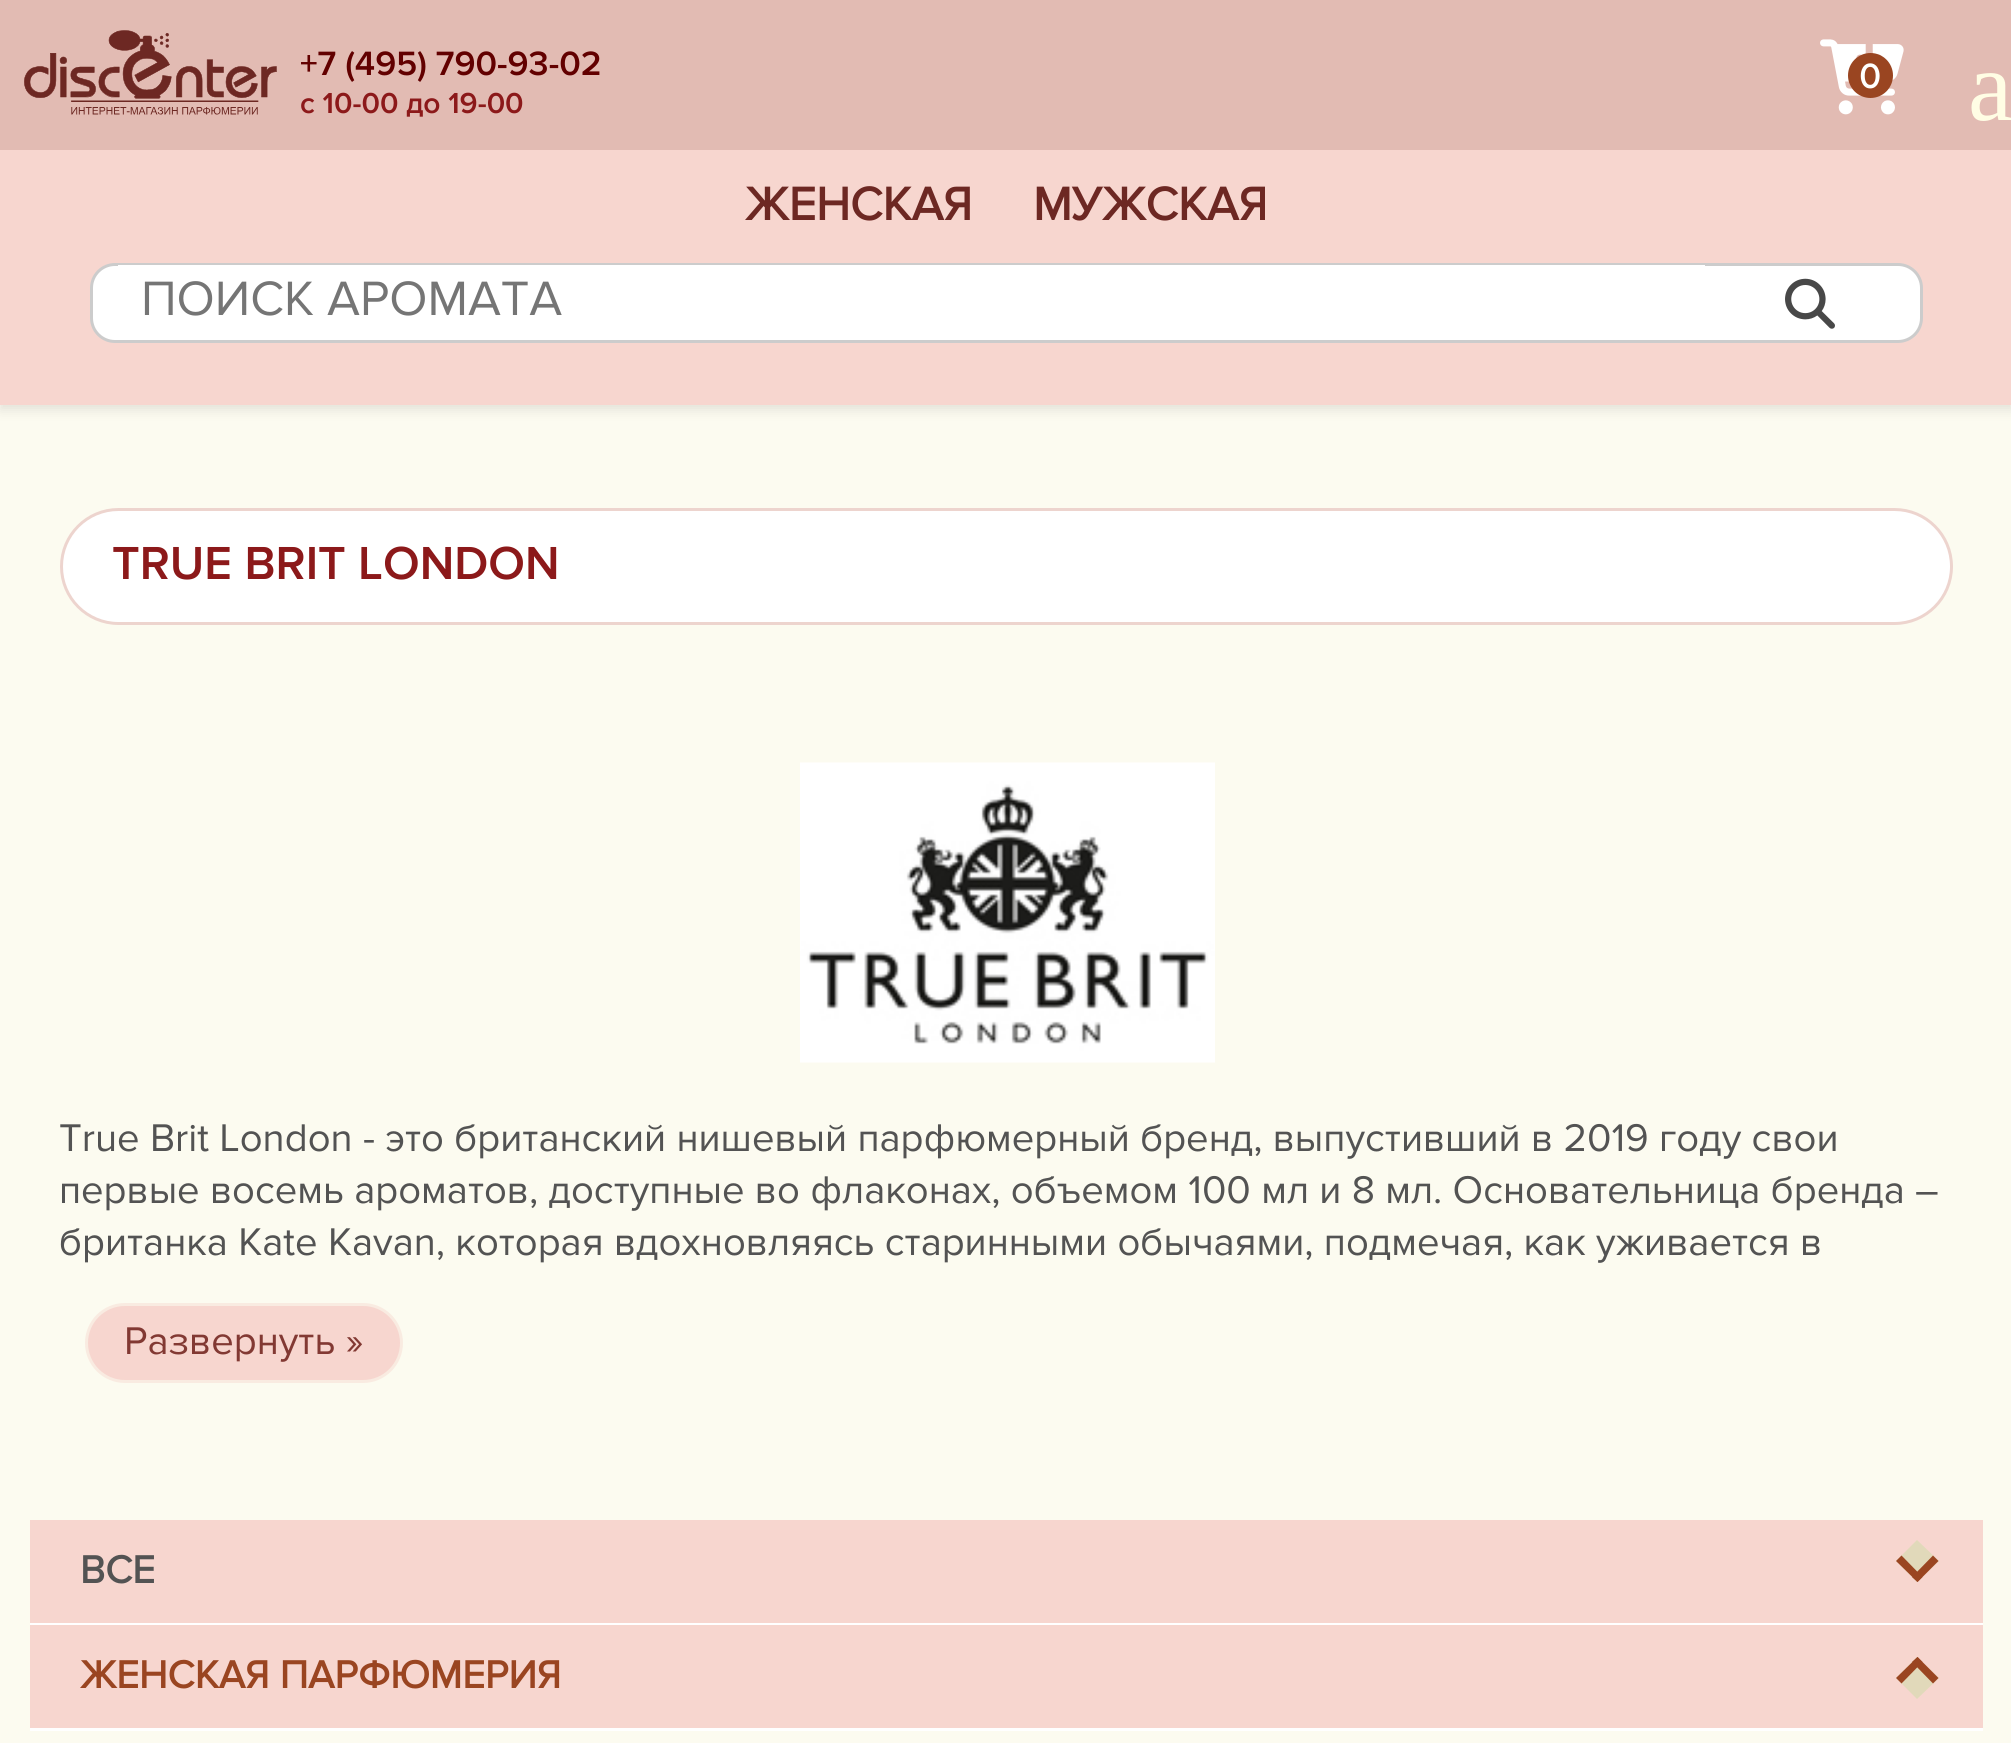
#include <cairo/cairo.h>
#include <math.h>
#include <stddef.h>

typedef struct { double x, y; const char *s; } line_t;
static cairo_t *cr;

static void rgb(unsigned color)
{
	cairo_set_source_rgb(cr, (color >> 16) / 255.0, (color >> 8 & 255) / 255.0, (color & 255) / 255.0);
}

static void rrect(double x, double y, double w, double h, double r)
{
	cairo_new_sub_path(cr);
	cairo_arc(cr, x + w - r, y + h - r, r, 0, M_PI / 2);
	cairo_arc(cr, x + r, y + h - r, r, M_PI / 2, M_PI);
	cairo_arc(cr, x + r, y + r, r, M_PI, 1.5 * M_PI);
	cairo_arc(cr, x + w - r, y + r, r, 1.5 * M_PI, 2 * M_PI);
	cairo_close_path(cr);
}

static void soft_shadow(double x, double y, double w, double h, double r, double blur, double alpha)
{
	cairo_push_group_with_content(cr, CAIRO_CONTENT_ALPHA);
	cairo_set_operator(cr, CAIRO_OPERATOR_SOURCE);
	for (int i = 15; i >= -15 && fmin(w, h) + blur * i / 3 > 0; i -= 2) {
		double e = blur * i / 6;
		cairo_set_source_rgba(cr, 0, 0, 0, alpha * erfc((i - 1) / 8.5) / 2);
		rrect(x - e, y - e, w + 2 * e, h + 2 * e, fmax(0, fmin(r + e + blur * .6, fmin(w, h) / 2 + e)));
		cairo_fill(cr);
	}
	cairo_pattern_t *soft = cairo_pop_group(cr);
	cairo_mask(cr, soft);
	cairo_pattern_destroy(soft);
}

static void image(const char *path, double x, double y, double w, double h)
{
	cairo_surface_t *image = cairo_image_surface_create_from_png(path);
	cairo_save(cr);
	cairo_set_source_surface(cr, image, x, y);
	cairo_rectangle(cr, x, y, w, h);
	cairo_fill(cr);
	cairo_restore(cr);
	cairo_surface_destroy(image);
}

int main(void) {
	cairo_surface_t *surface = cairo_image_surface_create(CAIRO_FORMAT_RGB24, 2011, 1743);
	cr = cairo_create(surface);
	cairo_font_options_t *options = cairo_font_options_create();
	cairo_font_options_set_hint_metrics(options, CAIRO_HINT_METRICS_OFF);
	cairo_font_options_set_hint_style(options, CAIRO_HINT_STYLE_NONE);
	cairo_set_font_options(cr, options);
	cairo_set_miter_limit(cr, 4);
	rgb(0xfcfbf0);
	cairo_paint(cr);
	rgb(0x000000);
	soft_shadow(0, 5, 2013, 405, 0, 6, 0.1);
	rgb(0xf7d6cf);
	cairo_rectangle(cr, 0, 150, 2011, 255);
	cairo_fill(cr);
	rgb(0xe2bbb3);
	cairo_rectangle(cr, 0, 0, 2011, 150);
	cairo_fill(cr);
	image("img/1.png", 24, 30, 253, 85);
	image("img/2.png", 1820, 39, 84, 76);
	rgb(0x9a4521);
	cairo_arc(cr, 1870.5, 75.5, 22.5, 0, 2 * M_PI);
	cairo_fill(cr);
	rgb(0xffffff);
	rrect(91.5, 264.5, 1830, 77, 23.5);
	cairo_fill_preserve(cr);
	rgb(0xcccccc);
	cairo_set_line_width(cr, 3);
	cairo_stroke(cr);
	rgb(0xffffff);
	cairo_rectangle(cr, 118, 265, 1587, 1);
	cairo_fill(cr);
	image("img/3.png", 1785, 278, 50, 51);
	rrect(61.5, 509.5, 1890, 114, 57);
	cairo_fill_preserve(cr);
	rgb(0xedd4ce);
	cairo_stroke(cr);
	image("img/4.png", 800, 762, 415, 301);
	rgb(0xf7d6cf);
	rrect(86.5, 1304.5, 315, 77, 38.5);
	cairo_fill_preserve(cr);
	rgb(0xf9ebe1);
	cairo_stroke(cr);
	rgb(0xf7d6cf);
	cairo_rectangle(cr, 30, 1520, 1953, 103);
	cairo_fill(cr);
	rgb(0xffffff);
	cairo_rectangle(cr, 30, 1623, 1953, 2);
	cairo_fill(cr);
	rgb(0xe1d9ba);
	cairo_new_path(cr);
	cairo_move_to(cr, 1917, 1582);
	cairo_line_to(cr, 1896, 1561);
	cairo_line_to(cr, 1917, 1540);
	cairo_line_to(cr, 1939, 1561);
	cairo_close_path(cr);
	cairo_fill(cr);
	rgb(0x9a4521);
	cairo_new_path(cr);
	cairo_move_to(cr, 1917.5, 1582);
	cairo_line_to(cr, 1896, 1561);
	cairo_line_to(cr, 1901.5, 1555.5);
	cairo_line_to(cr, 1922.5, 1577);
	cairo_close_path(cr);
	cairo_fill(cr);
	cairo_new_path(cr);
	cairo_move_to(cr, 1917.5, 1582);
	cairo_line_to(cr, 1912, 1577);
	cairo_line_to(cr, 1933, 1555.5);
	cairo_line_to(cr, 1938.5, 1561);
	cairo_close_path(cr);
	cairo_fill(cr);
	rgb(0xf7d6cf);
	cairo_rectangle(cr, 30, 1625, 1953, 103);
	cairo_fill(cr);
	rgb(0xffffff);
	cairo_rectangle(cr, 30, 1728, 1953, 3);
	cairo_fill(cr);
	rgb(0xe1d9ba);
	cairo_new_path(cr);
	cairo_move_to(cr, 1917, 1657);
	cairo_line_to(cr, 1939, 1678);
	cairo_line_to(cr, 1917, 1699);
	cairo_line_to(cr, 1896, 1678);
	cairo_close_path(cr);
	cairo_fill(cr);
	rgb(0x9a4521);
	cairo_new_path(cr);
	cairo_move_to(cr, 1917.5, 1657);
	cairo_line_to(cr, 1938.5, 1678);
	cairo_line_to(cr, 1933, 1683.5);
	cairo_line_to(cr, 1912, 1662);
	cairo_close_path(cr);
	cairo_fill(cr);
	cairo_new_path(cr);
	cairo_move_to(cr, 1917.5, 1657);
	cairo_line_to(cr, 1922.5, 1662);
	cairo_line_to(cr, 1901.5, 1683.5);
	cairo_line_to(cr, 1896, 1678);
	cairo_close_path(cr);
	cairo_fill(cr);
	cairo_select_font_face(cr, "Proxima Nova SemiBold", CAIRO_FONT_SLANT_NORMAL, CAIRO_FONT_WEIGHT_NORMAL);
	cairo_set_font_size(cr, 35);
	rgb(0x620000);
	cairo_move_to(cr, 300, 75);
	cairo_show_text(cr, "+7 (495) 790-93-02");
	cairo_set_font_size(cr, 30);
	rgb(0x8c191a);
	cairo_move_to(cr, 300, 113);
	cairo_show_text(cr, "с 10-00 до 19-00");
	cairo_select_font_face(cr, "Proxima Nova", CAIRO_FONT_SLANT_NORMAL, CAIRO_FONT_WEIGHT_BOLD);
	cairo_set_font_size(cr, 35);
	rgb(0xffffff);
	cairo_move_to(cr, 1859, 88);
	cairo_show_text(cr, "0");
	cairo_select_font_face(cr, "Liberation Serif", CAIRO_FONT_SLANT_NORMAL, CAIRO_FONT_WEIGHT_NORMAL);
	cairo_set_font_size(cr, 100);
	rgb(0xfffde4);
	cairo_move_to(cr, 1968, 120);
	cairo_show_text(cr, "a");
	cairo_select_font_face(cr, "Proxima Nova", CAIRO_FONT_SLANT_NORMAL, CAIRO_FONT_WEIGHT_BOLD);
	cairo_set_font_size(cr, 48);
	rgb(0x6d2823);
	cairo_move_to(cr, 745, 220);
	cairo_show_text(cr, "ЖЕНСКАЯ");
	cairo_move_to(cr, 1033, 220);
	cairo_show_text(cr, "МУЖСКАЯ");
	cairo_select_font_face(cr, "Proxima Nova", CAIRO_FONT_SLANT_NORMAL, CAIRO_FONT_WEIGHT_NORMAL);
	cairo_set_font_size(cr, 50);
	rgb(0x757575);
	cairo_move_to(cr, 141, 315);
	cairo_show_text(cr, "ПОИСК АРОМАТА");
	cairo_select_font_face(cr, "Proxima Nova SemiBold", CAIRO_FONT_SLANT_NORMAL, CAIRO_FONT_WEIGHT_NORMAL);
	cairo_set_font_size(cr, 48);
	rgb(0x8c191a);
	cairo_move_to(cr, 112, 579);
	cairo_show_text(cr, "TRUE BRIT LONDON");
	cairo_select_font_face(cr, "Proxima Nova", CAIRO_FONT_SLANT_NORMAL, CAIRO_FONT_WEIGHT_NORMAL);
	cairo_set_font_size(cr, 40);
	rgb(0x535353);
	{
		static const line_t items[] = {
			{59, 1151, "True Brit London - это британский нишевый парфюмерный бренд, выпустивший в 2019 году свои"},
			{59, 1203, "первые восемь ароматов, доступные во флаконах, объемом 100 мл и 8 мл. Основательница бренда –"},
			{59, 1255, "британка Kate Kavan, которая вдохновляясь старинными обычаями, подмечая, как уживается в"},
		};
		for (size_t i = 0; i < sizeof items / sizeof *items; i++) {
			cairo_move_to(cr, items[i].x, items[i].y);
			cairo_show_text(cr, items[i].s);
		}
	}
	rgb(0x823933);
	cairo_move_to(cr, 124, 1354);
	cairo_show_text(cr, "Развернуть »");
	cairo_select_font_face(cr, "Proxima Nova", CAIRO_FONT_SLANT_NORMAL, CAIRO_FONT_WEIGHT_BOLD);
	rgb(0x535353);
	cairo_move_to(cr, 80, 1583);
	cairo_show_text(cr, "ВСЕ");
	rgb(0x9a4521);
	cairo_move_to(cr, 80, 1688);
	cairo_show_text(cr, "ЖЕНСКАЯ ПАРФЮМЕРИЯ");
	cairo_surface_write_to_png(surface, "page.png");
	cairo_font_options_destroy(options);
	cairo_destroy(cr);
	cairo_surface_destroy(surface);
	return 0;
}
